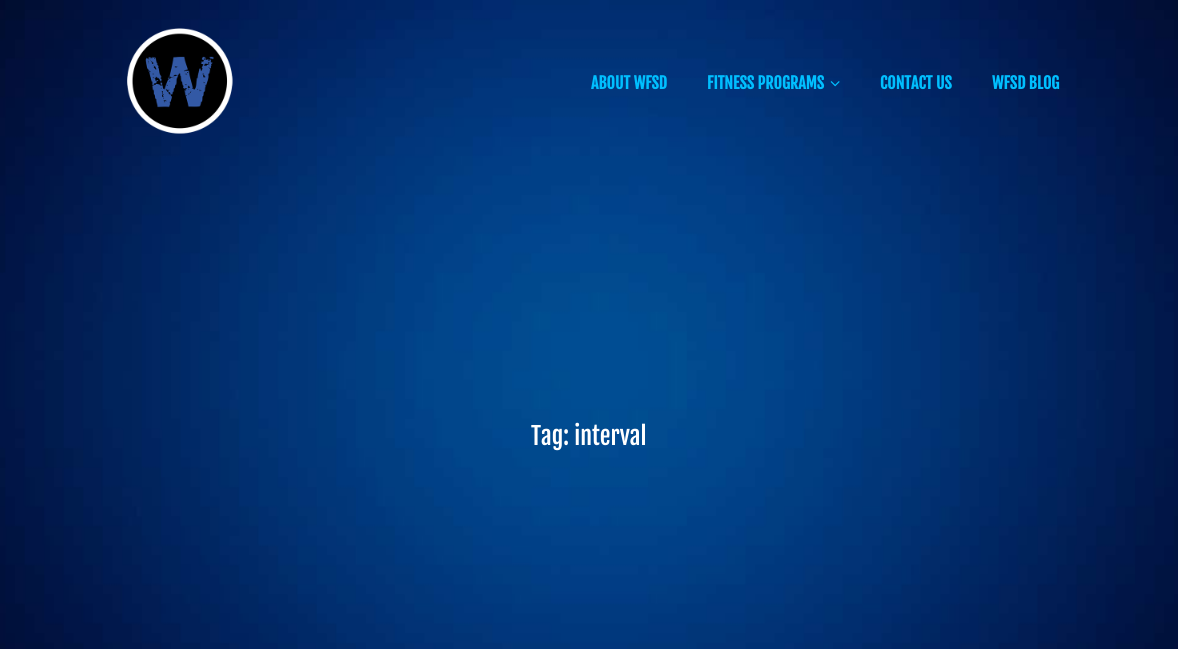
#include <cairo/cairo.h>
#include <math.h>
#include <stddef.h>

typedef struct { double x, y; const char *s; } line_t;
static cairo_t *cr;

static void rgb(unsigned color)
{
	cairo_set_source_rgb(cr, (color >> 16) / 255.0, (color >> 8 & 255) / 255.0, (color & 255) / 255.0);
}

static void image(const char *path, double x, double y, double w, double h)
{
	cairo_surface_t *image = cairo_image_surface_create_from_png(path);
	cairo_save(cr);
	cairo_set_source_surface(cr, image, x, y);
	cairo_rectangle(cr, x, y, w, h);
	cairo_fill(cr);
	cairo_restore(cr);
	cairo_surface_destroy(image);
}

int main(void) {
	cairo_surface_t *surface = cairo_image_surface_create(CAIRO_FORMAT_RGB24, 1178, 649);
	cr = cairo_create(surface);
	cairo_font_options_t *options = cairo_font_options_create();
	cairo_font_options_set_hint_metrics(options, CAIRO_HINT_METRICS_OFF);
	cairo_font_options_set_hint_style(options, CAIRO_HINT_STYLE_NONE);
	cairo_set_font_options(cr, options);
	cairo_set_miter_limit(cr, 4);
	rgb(0xffffff);
	cairo_paint(cr);
	image("img/1.png", 0, 0, 1178, 649);
	image("img/2.png", 127, 28, 106, 106);
	image("img/3.png", 830, 81, 10, 6);
	cairo_select_font_face(cr, "Fjalla One", CAIRO_FONT_SLANT_NORMAL, CAIRO_FONT_WEIGHT_BOLD);
	cairo_set_font_size(cr, 16);
	rgb(0x00bfff);
	{
		static const line_t items[] = {
			{591, 89, "ABOUT WFSD"},
			{707, 89, "FITNESS PROGRAMS"},
			{880, 89, "CONTACT US"},
			{992, 89, "WFSD BLOG"},
		};
		for (size_t i = 0; i < sizeof items / sizeof *items; i++) {
			cairo_move_to(cr, items[i].x, items[i].y);
			cairo_show_text(cr, items[i].s);
		}
	}
	cairo_select_font_face(cr, "Fjalla One", CAIRO_FONT_SLANT_NORMAL, CAIRO_FONT_WEIGHT_NORMAL);
	cairo_set_font_size(cr, 24);
	rgb(0xffffff);
	cairo_move_to(cr, 531, 445);
	cairo_show_text(cr, "Tag: interval");
	cairo_surface_write_to_png(surface, "page.png");
	cairo_font_options_destroy(options);
	cairo_destroy(cr);
	cairo_surface_destroy(surface);
	return 0;
}
